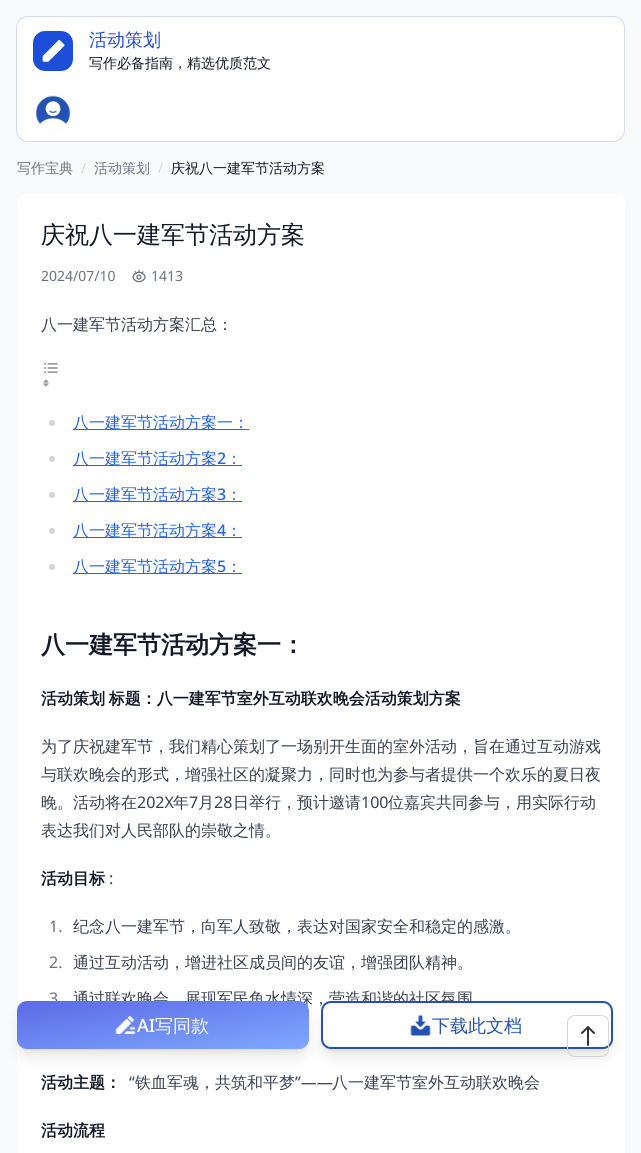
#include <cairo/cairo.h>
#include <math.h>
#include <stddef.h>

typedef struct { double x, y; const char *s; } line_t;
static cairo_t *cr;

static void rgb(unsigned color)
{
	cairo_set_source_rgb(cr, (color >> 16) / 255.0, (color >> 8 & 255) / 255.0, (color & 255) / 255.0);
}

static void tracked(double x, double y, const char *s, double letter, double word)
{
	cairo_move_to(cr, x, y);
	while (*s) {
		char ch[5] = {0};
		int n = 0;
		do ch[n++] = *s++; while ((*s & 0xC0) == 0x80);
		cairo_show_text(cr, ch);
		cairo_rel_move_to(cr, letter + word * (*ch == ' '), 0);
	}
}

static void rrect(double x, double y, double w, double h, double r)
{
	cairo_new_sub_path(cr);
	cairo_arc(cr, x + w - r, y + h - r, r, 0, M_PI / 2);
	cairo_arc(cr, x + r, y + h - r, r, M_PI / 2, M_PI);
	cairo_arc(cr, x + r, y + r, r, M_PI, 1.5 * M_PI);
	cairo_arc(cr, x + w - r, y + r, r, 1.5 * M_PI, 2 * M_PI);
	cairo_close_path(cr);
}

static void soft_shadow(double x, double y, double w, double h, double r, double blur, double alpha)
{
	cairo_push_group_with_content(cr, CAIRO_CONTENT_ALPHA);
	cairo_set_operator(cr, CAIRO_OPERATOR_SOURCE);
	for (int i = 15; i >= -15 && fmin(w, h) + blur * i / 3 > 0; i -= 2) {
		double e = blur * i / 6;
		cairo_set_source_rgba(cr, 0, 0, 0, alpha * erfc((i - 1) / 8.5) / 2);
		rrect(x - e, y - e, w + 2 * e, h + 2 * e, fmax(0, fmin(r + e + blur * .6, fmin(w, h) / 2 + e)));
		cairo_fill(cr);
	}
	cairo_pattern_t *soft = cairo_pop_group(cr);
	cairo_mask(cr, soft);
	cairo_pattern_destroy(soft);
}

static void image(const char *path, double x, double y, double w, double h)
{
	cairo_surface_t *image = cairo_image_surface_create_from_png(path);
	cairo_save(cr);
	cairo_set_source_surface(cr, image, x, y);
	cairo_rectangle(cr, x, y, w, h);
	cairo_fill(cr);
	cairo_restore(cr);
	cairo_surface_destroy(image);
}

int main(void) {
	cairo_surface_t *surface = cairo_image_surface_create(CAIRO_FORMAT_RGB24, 641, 1153);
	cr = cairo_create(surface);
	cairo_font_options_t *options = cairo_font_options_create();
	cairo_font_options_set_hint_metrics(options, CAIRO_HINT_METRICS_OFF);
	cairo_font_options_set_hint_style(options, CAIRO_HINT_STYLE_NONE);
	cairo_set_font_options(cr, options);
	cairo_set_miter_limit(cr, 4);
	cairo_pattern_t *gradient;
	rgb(0xf9fafb);
	cairo_paint(cr);
	rgb(0xfefefe);
	rrect(16, 16, 609, 126, 12);
	cairo_fill(cr);
	rrect(16.5, 16.5, 608, 125, 11.5);
	cairo_set_source_rgba(cr, 0.114, 0.306, 0.847, 0.2);
	cairo_set_line_width(cr, 1);
	cairo_stroke(cr);
	rgb(0x1d4ed8);
	rrect(33, 31, 40, 40, 12);
	cairo_fill(cr);
	image("img/1.png", 42, 40, 23, 22);
	image("img/2.png", 35, 95, 36, 36);
	rgb(0xffffff);
	cairo_new_path(cr);
	cairo_move_to(cr, 25, 194);
	cairo_line_to(cr, 617, 194);
	cairo_curve_to(cr, 621.5, 194, 625, 197.5, 625, 202);
	cairo_line_to(cr, 625, 1153);
	cairo_line_to(cr, 17, 1153);
	cairo_line_to(cr, 17, 202);
	cairo_curve_to(cr, 17, 197.5, 20.5, 194, 25, 194);
	cairo_close_path(cr);
	cairo_fill(cr);
	image("img/3.png", 132, 269, 14, 14);
	image("img/4.png", 44, 363, 14, 10);
	image("img/5.png", 43, 379, 6, 8);
	rgb(0xd1d5db);
	cairo_arc(cr, 52, 423, 3, 0, 2 * M_PI);
	cairo_fill(cr);
	rgb(0x2563eb);
	cairo_rectangle(cr, 73, 429, 176, 1);
	cairo_fill(cr);
	rgb(0xd1d5db);
	cairo_arc(cr, 52, 459, 3, 0, 2 * M_PI);
	cairo_fill(cr);
	rgb(0x2563eb);
	cairo_rectangle(cr, 73, 465, 169, 1);
	cairo_fill(cr);
	rgb(0xd1d5db);
	cairo_arc(cr, 52, 495, 3, 0, 2 * M_PI);
	cairo_fill(cr);
	rgb(0x2563eb);
	cairo_rectangle(cr, 73, 501, 169, 1);
	cairo_fill(cr);
	rgb(0xd1d5db);
	cairo_arc(cr, 52, 531, 3, 0, 2 * M_PI);
	cairo_fill(cr);
	rgb(0x2563eb);
	cairo_rectangle(cr, 73, 537, 169, 1);
	cairo_fill(cr);
	rgb(0xd1d5db);
	cairo_arc(cr, 52, 567, 3, 0, 2 * M_PI);
	cairo_fill(cr);
	rgb(0x2563eb);
	cairo_rectangle(cr, 73, 573, 169, 1);
	cairo_fill(cr);
	rgb(0x000000);
	soft_shadow(21, 1009, 284, 40, 6, 3, 0.1);
	soft_shadow(20, 1014, 286, 42, 7, 7.5, 0.1);
	soft_shadow(325, 1009, 284, 40, 6, 3, 0.1);
	cairo_select_font_face(cr, "WenQuanYi Zen Hei Medium", CAIRO_FONT_SLANT_NORMAL, CAIRO_FONT_WEIGHT_NORMAL);
	cairo_set_font_size(cr, 18);
	gradient = cairo_pattern_create_linear(89, 39, 369, 39);
	cairo_pattern_add_color_stop_rgba(gradient, 0, 0.114, 0.306, 0.847, 1);
	cairo_pattern_add_color_stop_rgba(gradient, 1, 0.263, 0.22, 0.792, 1);
	cairo_set_source(cr, gradient);
	cairo_pattern_destroy(gradient);
	cairo_move_to(cr, 89, 46);
	cairo_show_text(cr, "活动策划");
	cairo_set_font_size(cr, 14);
	rgb(0x111827);
	cairo_move_to(cr, 89, 68);
	cairo_show_text(cr, "写作必备指南，精选优质范文");
	rgb(0x6b7280);
	cairo_move_to(cr, 17, 173);
	cairo_show_text(cr, "写作宝典");
	cairo_select_font_face(cr, "Noto Sans", CAIRO_FONT_SLANT_NORMAL, CAIRO_FONT_WEIGHT_NORMAL);
	rgb(0xd1d5db);
	cairo_move_to(cr, 81, 173);
	cairo_show_text(cr, "/");
	cairo_select_font_face(cr, "WenQuanYi Zen Hei Medium", CAIRO_FONT_SLANT_NORMAL, CAIRO_FONT_WEIGHT_NORMAL);
	rgb(0x6b7280);
	cairo_move_to(cr, 94, 173);
	cairo_show_text(cr, "活动策划");
	cairo_select_font_face(cr, "Noto Sans", CAIRO_FONT_SLANT_NORMAL, CAIRO_FONT_WEIGHT_NORMAL);
	rgb(0xd1d5db);
	cairo_move_to(cr, 158, 173);
	cairo_show_text(cr, "/");
	cairo_select_font_face(cr, "WenQuanYi Zen Hei Medium", CAIRO_FONT_SLANT_NORMAL, CAIRO_FONT_WEIGHT_NORMAL);
	rgb(0x111827);
	cairo_move_to(cr, 171, 173);
	cairo_show_text(cr, "庆祝八一建军节活动方案");
	cairo_set_font_size(cr, 24);
	cairo_move_to(cr, 41, 243);
	cairo_show_text(cr, "庆祝八一建军节活动方案");
	cairo_select_font_face(cr, "Noto Sans", CAIRO_FONT_SLANT_NORMAL, CAIRO_FONT_WEIGHT_NORMAL);
	cairo_set_font_size(cr, 14);
	rgb(0x6b7280);
	cairo_move_to(cr, 41, 281);
	cairo_show_text(cr, "2024/07/10");
	cairo_move_to(cr, 151, 281);
	cairo_show_text(cr, "1413");
	cairo_select_font_face(cr, "WenQuanYi Zen Hei Medium", CAIRO_FONT_SLANT_NORMAL, CAIRO_FONT_WEIGHT_NORMAL);
	cairo_set_font_size(cr, 16);
	rgb(0x374151);
	cairo_move_to(cr, 41, 330);
	cairo_show_text(cr, "八一建军节活动方案汇总：");
	rgb(0x2563eb);
	cairo_move_to(cr, 73, 428);
	cairo_show_text(cr, "八一建军节活动方案一：");
	cairo_move_to(cr, 73, 464);
	cairo_show_text(cr, "八一建军节活动方案");
	cairo_select_font_face(cr, "Noto Sans Medium", CAIRO_FONT_SLANT_NORMAL, CAIRO_FONT_WEIGHT_NORMAL);
	cairo_move_to(cr, 217, 464);
	cairo_show_text(cr, "2");
	cairo_select_font_face(cr, "WenQuanYi Zen Hei Medium", CAIRO_FONT_SLANT_NORMAL, CAIRO_FONT_WEIGHT_NORMAL);
	cairo_move_to(cr, 226, 464);
	cairo_show_text(cr, "：");
	cairo_move_to(cr, 73, 500);
	cairo_show_text(cr, "八一建军节活动方案");
	cairo_select_font_face(cr, "Noto Sans Medium", CAIRO_FONT_SLANT_NORMAL, CAIRO_FONT_WEIGHT_NORMAL);
	cairo_move_to(cr, 217, 500);
	cairo_show_text(cr, "3");
	cairo_select_font_face(cr, "WenQuanYi Zen Hei Medium", CAIRO_FONT_SLANT_NORMAL, CAIRO_FONT_WEIGHT_NORMAL);
	cairo_move_to(cr, 226, 500);
	cairo_show_text(cr, "：");
	cairo_move_to(cr, 73, 536);
	cairo_show_text(cr, "八一建军节活动方案");
	cairo_select_font_face(cr, "Noto Sans Medium", CAIRO_FONT_SLANT_NORMAL, CAIRO_FONT_WEIGHT_NORMAL);
	cairo_move_to(cr, 217, 536);
	cairo_show_text(cr, "4");
	cairo_select_font_face(cr, "WenQuanYi Zen Hei Medium", CAIRO_FONT_SLANT_NORMAL, CAIRO_FONT_WEIGHT_NORMAL);
	cairo_move_to(cr, 226, 536);
	cairo_show_text(cr, "：");
	cairo_move_to(cr, 73, 572);
	cairo_show_text(cr, "八一建军节活动方案");
	cairo_select_font_face(cr, "Noto Sans Medium", CAIRO_FONT_SLANT_NORMAL, CAIRO_FONT_WEIGHT_NORMAL);
	cairo_move_to(cr, 217, 572);
	cairo_show_text(cr, "5");
	cairo_select_font_face(cr, "WenQuanYi Zen Hei Medium", CAIRO_FONT_SLANT_NORMAL, CAIRO_FONT_WEIGHT_NORMAL);
	cairo_move_to(cr, 226, 572);
	cairo_show_text(cr, "：");
	cairo_select_font_face(cr, "WenQuanYi Zen Hei", CAIRO_FONT_SLANT_NORMAL, CAIRO_FONT_WEIGHT_BOLD);
	cairo_set_font_size(cr, 24);
	rgb(0x111827);
	cairo_move_to(cr, 41, 653);
	cairo_show_text(cr, "八一建军节活动方案一：");
	cairo_set_font_size(cr, 16);
	tracked(41, 704, "活动策划 标题：八一建军节室外互动联欢晚会活动策划方案", 0, -1);
	cairo_select_font_face(cr, "WenQuanYi Zen Hei Medium", CAIRO_FONT_SLANT_NORMAL, CAIRO_FONT_WEIGHT_NORMAL);
	rgb(0x374151);
	{
		static const line_t items[] = {
			{41, 752, "为了庆祝建军节，我们精心策划了一场别开生面的室外活动，旨在通过互动游戏"},
			{41, 780, "与联欢晚会的形式，增强社区的凝聚力，同时也为参与者提供一个欢乐的夏日夜"},
			{41, 808, "晚。活动将在"},
		};
		for (size_t i = 0; i < sizeof items / sizeof *items; i++) {
			cairo_move_to(cr, items[i].x, items[i].y);
			cairo_show_text(cr, items[i].s);
		}
	}
	cairo_select_font_face(cr, "Noto Sans", CAIRO_FONT_SLANT_NORMAL, CAIRO_FONT_WEIGHT_NORMAL);
	cairo_move_to(cr, 137, 808);
	cairo_show_text(cr, "202X");
	cairo_select_font_face(cr, "WenQuanYi Zen Hei Medium", CAIRO_FONT_SLANT_NORMAL, CAIRO_FONT_WEIGHT_NORMAL);
	cairo_move_to(cr, 173, 808);
	cairo_show_text(cr, "年");
	cairo_select_font_face(cr, "Noto Sans", CAIRO_FONT_SLANT_NORMAL, CAIRO_FONT_WEIGHT_NORMAL);
	cairo_move_to(cr, 189, 808);
	cairo_show_text(cr, "7");
	cairo_select_font_face(cr, "WenQuanYi Zen Hei Medium", CAIRO_FONT_SLANT_NORMAL, CAIRO_FONT_WEIGHT_NORMAL);
	cairo_move_to(cr, 198, 808);
	cairo_show_text(cr, "月");
	cairo_select_font_face(cr, "Noto Sans", CAIRO_FONT_SLANT_NORMAL, CAIRO_FONT_WEIGHT_NORMAL);
	cairo_move_to(cr, 214, 808);
	cairo_show_text(cr, "28");
	cairo_select_font_face(cr, "WenQuanYi Zen Hei Medium", CAIRO_FONT_SLANT_NORMAL, CAIRO_FONT_WEIGHT_NORMAL);
	cairo_move_to(cr, 233, 808);
	cairo_show_text(cr, "日举行，预计邀请");
	cairo_select_font_face(cr, "Noto Sans", CAIRO_FONT_SLANT_NORMAL, CAIRO_FONT_WEIGHT_NORMAL);
	cairo_move_to(cr, 361, 808);
	cairo_show_text(cr, "100");
	cairo_select_font_face(cr, "WenQuanYi Zen Hei Medium", CAIRO_FONT_SLANT_NORMAL, CAIRO_FONT_WEIGHT_NORMAL);
	cairo_move_to(cr, 388, 808);
	cairo_show_text(cr, "位嘉宾共同参与，用实际行动");
	cairo_move_to(cr, 41, 836);
	cairo_show_text(cr, "表达我们对人民部队的崇敬之情。");
	cairo_select_font_face(cr, "WenQuanYi Zen Hei", CAIRO_FONT_SLANT_NORMAL, CAIRO_FONT_WEIGHT_BOLD);
	rgb(0x111827);
	cairo_move_to(cr, 41, 884);
	cairo_show_text(cr, "活动目标");
	cairo_select_font_face(cr, "Noto Sans", CAIRO_FONT_SLANT_NORMAL, CAIRO_FONT_WEIGHT_NORMAL);
	rgb(0x374151);
	cairo_move_to(cr, 109, 884);
	cairo_show_text(cr, ":");
	rgb(0x6b7280);
	cairo_move_to(cr, 49, 932);
	cairo_show_text(cr, "1.");
	cairo_select_font_face(cr, "WenQuanYi Zen Hei Medium", CAIRO_FONT_SLANT_NORMAL, CAIRO_FONT_WEIGHT_NORMAL);
	rgb(0x374151);
	cairo_move_to(cr, 73, 932);
	cairo_show_text(cr, "纪念八一建军节，向军人致敬，表达对国家安全和稳定的感激。");
	cairo_select_font_face(cr, "Noto Sans", CAIRO_FONT_SLANT_NORMAL, CAIRO_FONT_WEIGHT_NORMAL);
	rgb(0x6b7280);
	cairo_move_to(cr, 49, 968);
	cairo_show_text(cr, "2.");
	cairo_select_font_face(cr, "WenQuanYi Zen Hei Medium", CAIRO_FONT_SLANT_NORMAL, CAIRO_FONT_WEIGHT_NORMAL);
	rgb(0x374151);
	cairo_move_to(cr, 73, 968);
	cairo_show_text(cr, "通过互动活动，增进社区成员间的友谊，增强团队精神。");
	cairo_select_font_face(cr, "Noto Sans", CAIRO_FONT_SLANT_NORMAL, CAIRO_FONT_WEIGHT_NORMAL);
	rgb(0x6b7280);
	cairo_move_to(cr, 49, 1004);
	cairo_show_text(cr, "3");
	cairo_select_font_face(cr, "WenQuanYi Zen Hei Medium", CAIRO_FONT_SLANT_NORMAL, CAIRO_FONT_WEIGHT_NORMAL);
	rgb(0x374151);
	cairo_move_to(cr, 73, 1004);
	cairo_show_text(cr, "通过联欢晚会，展现军民鱼水情深，营造和谐的社区氛围");
	cairo_select_font_face(cr, "WenQuanYi Zen Hei", CAIRO_FONT_SLANT_NORMAL, CAIRO_FONT_WEIGHT_BOLD);
	rgb(0x111827);
	cairo_move_to(cr, 41, 1088);
	cairo_show_text(cr, "活动主题：");
	cairo_select_font_face(cr, "Noto Sans", CAIRO_FONT_SLANT_NORMAL, CAIRO_FONT_WEIGHT_NORMAL);
	rgb(0x374151);
	cairo_move_to(cr, 129, 1088);
	cairo_show_text(cr, "“");
	cairo_select_font_face(cr, "WenQuanYi Zen Hei Medium", CAIRO_FONT_SLANT_NORMAL, CAIRO_FONT_WEIGHT_NORMAL);
	cairo_move_to(cr, 135, 1088);
	cairo_show_text(cr, "铁血军魂，共筑和平梦");
	cairo_select_font_face(cr, "Noto Sans", CAIRO_FONT_SLANT_NORMAL, CAIRO_FONT_WEIGHT_NORMAL);
	cairo_move_to(cr, 295, 1088);
	cairo_show_text(cr, "”——");
	cairo_select_font_face(cr, "WenQuanYi Zen Hei Medium", CAIRO_FONT_SLANT_NORMAL, CAIRO_FONT_WEIGHT_NORMAL);
	cairo_move_to(cr, 332, 1088);
	cairo_show_text(cr, "八一建军节室外互动联欢晚会");
	cairo_select_font_face(cr, "WenQuanYi Zen Hei", CAIRO_FONT_SLANT_NORMAL, CAIRO_FONT_WEIGHT_BOLD);
	rgb(0x111827);
	cairo_move_to(cr, 41, 1136);
	cairo_show_text(cr, "活动流程");
	gradient = cairo_pattern_create_linear(155, 978, 170, 1072);
	cairo_pattern_add_color_stop_rgba(gradient, 0, 0.357, 0.412, 0.898, 1);
	cairo_pattern_add_color_stop_rgba(gradient, 1, 0.498, 0.663, 1, 1);
	cairo_set_source(cr, gradient);
	cairo_pattern_destroy(gradient);
	rrect(17, 1001, 292, 48, 10);
	cairo_fill(cr);
	image("img/6.png", 115, 1016, 21, 19);
	cairo_select_font_face(cr, "Noto Sans Medium", CAIRO_FONT_SLANT_NORMAL, CAIRO_FONT_WEIGHT_NORMAL);
	cairo_set_font_size(cr, 18);
	rgb(0xffffff);
	cairo_move_to(cr, 137, 1032);
	cairo_show_text(cr, "AI");
	cairo_select_font_face(cr, "WenQuanYi Zen Hei Medium", CAIRO_FONT_SLANT_NORMAL, CAIRO_FONT_WEIGHT_NORMAL);
	cairo_move_to(cr, 155, 1032);
	cairo_show_text(cr, "写同款");
	rgb(0x000000);
	soft_shadow(324, 1014, 286, 42, 7, 7.5, 0.1);
	rgb(0xffffff);
	rrect(322, 1002, 290, 46, 9);
	cairo_fill_preserve(cr);
	rgb(0x2551b5);
	cairo_set_line_width(cr, 2);
	cairo_stroke(cr);
	image("img/7.png", 410, 1015, 21, 21);
	cairo_move_to(cr, 432, 1032);
	cairo_show_text(cr, "下载此文档");
	rrect(567.5, 1015.5, 41, 41, 7.5);
	rgb(0xd1d5db);
	cairo_set_line_width(cr, 1);
	cairo_stroke(cr);
	cairo_new_path(cr);
	cairo_move_to(cr, 588, 1027);
	cairo_line_to(cr, 588, 1045);
	cairo_move_to(cr, 582, 1033);
	cairo_line_to(cr, 588, 1027);
	cairo_line_to(cr, 594, 1033);
	rgb(0x333333);
	cairo_set_line_width(cr, 2);
	cairo_set_line_cap(cr, CAIRO_LINE_CAP_ROUND);
	cairo_set_line_join(cr, CAIRO_LINE_JOIN_ROUND);
	cairo_stroke(cr);
	cairo_surface_write_to_png(surface, "page.png");
	cairo_font_options_destroy(options);
	cairo_destroy(cr);
	cairo_surface_destroy(surface);
	return 0;
}
